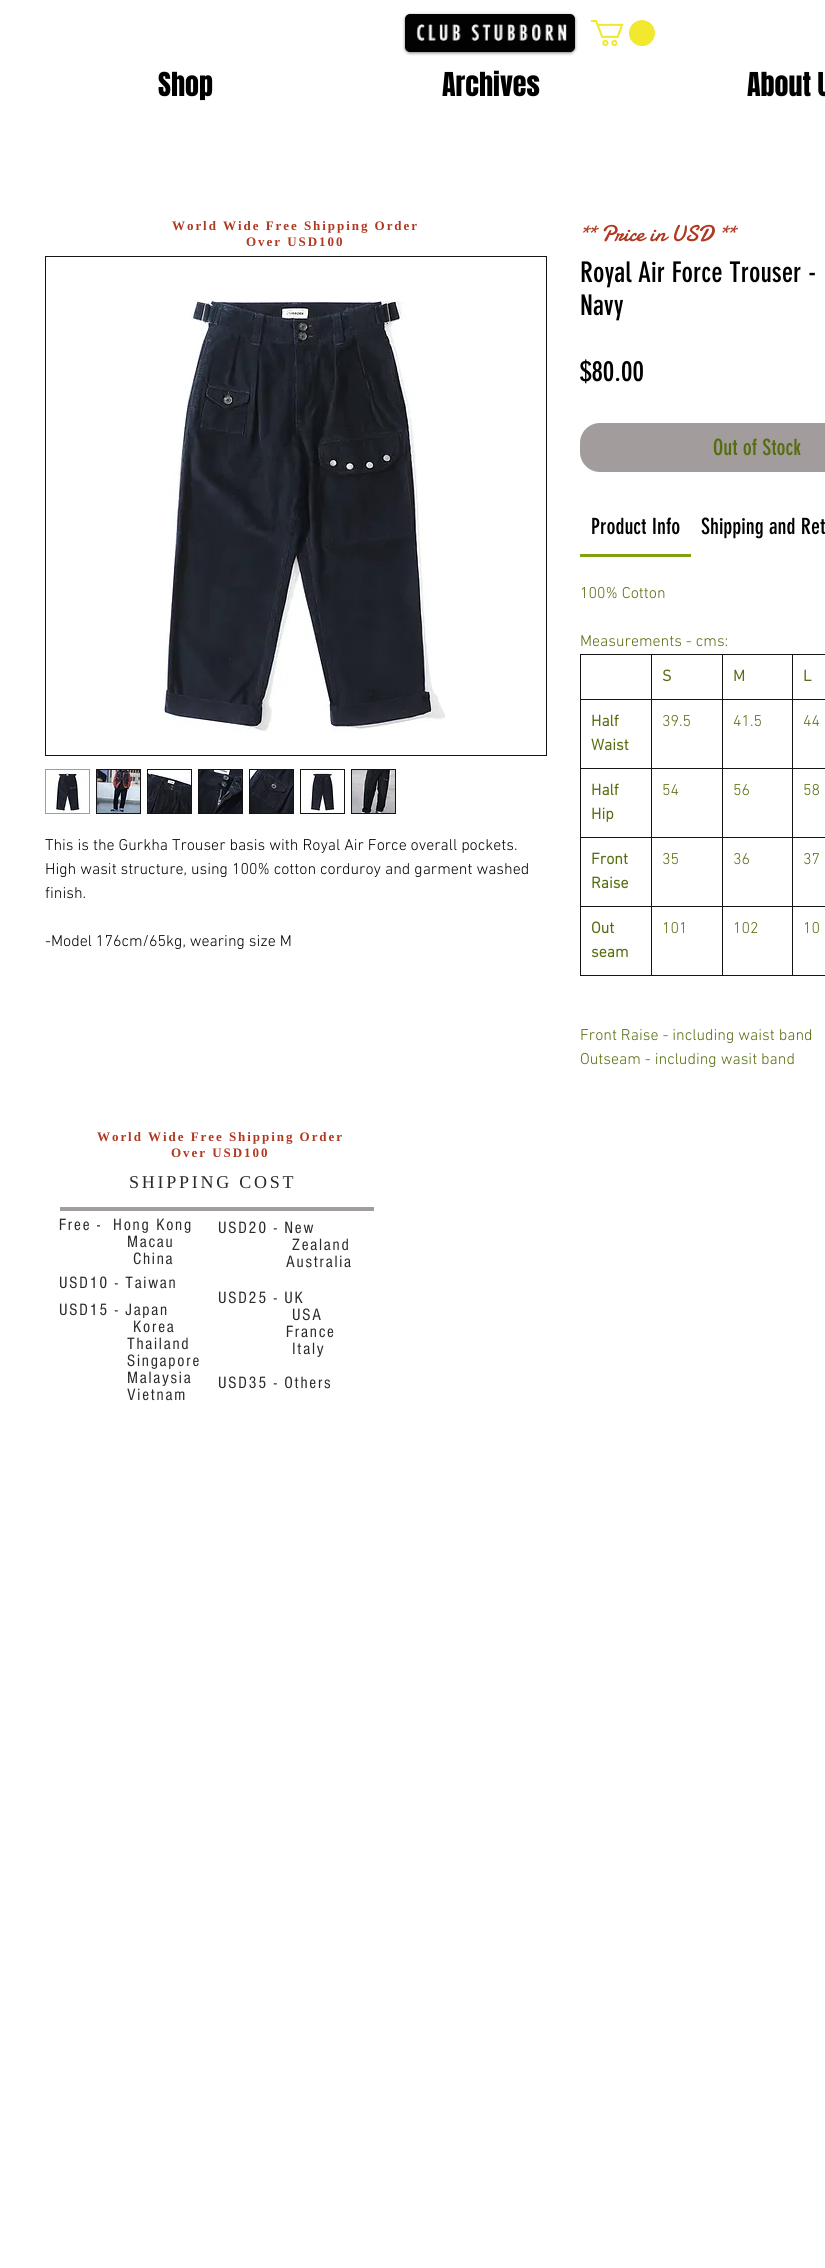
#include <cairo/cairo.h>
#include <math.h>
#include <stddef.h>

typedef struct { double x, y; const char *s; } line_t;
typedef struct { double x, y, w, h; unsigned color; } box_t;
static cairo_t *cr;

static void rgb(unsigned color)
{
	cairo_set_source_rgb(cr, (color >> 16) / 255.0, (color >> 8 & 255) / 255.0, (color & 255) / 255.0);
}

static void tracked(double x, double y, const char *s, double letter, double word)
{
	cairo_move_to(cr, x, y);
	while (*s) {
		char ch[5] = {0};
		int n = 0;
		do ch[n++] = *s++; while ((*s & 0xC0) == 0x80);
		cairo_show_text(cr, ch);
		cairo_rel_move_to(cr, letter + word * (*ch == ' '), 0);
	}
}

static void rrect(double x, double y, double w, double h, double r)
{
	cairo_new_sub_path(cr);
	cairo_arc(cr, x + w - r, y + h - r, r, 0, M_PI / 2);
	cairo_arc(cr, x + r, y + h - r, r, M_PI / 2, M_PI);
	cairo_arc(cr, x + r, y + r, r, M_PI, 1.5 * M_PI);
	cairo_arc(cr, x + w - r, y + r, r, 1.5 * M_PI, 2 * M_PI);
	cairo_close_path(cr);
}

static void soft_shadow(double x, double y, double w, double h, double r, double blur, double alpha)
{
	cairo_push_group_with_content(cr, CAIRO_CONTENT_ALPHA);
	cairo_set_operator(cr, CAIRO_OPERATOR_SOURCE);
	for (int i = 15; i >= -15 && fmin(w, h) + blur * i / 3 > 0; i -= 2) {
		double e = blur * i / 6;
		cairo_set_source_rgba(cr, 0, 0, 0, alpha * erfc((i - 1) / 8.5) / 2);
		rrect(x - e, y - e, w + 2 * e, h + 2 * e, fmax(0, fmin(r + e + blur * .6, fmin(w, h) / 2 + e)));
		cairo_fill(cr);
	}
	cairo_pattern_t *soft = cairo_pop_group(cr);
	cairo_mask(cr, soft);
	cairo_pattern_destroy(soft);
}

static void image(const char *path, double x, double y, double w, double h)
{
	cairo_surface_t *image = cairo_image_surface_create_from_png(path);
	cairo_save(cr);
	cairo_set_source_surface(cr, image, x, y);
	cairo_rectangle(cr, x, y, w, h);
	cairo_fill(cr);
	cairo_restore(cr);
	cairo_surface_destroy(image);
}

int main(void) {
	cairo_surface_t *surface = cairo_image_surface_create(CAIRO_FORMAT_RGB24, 825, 2268);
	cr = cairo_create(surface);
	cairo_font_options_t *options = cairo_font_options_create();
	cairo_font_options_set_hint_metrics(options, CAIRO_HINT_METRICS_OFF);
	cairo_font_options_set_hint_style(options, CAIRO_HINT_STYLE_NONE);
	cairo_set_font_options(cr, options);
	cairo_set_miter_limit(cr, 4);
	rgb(0xffffff);
	cairo_paint(cr);
	rgb(0x000000);
	soft_shadow(405, 15, 170, 38, 5, 1.5, 0.5);
	rgb(0x020202);
	rrect(406, 15, 168, 36, 4);
	cairo_fill_preserve(cr);
	cairo_stroke(cr);
	image("img/1.png", 416, 23, 151, 18);
	image("img/2.png", 591, 20, 64, 27);
	cairo_rectangle(cr, 45.5, 256.5, 501, 499);
	rgb(0x141414);
	cairo_set_line_width(cr, 1);
	cairo_stroke(cr);
	image("img/3.png", 162, 300, 284, 433);
	cairo_rectangle(cr, 45.5, 769.5, 44, 44);
	rgb(0xa29c9c);
	cairo_stroke(cr);
	image("img/4.png", 46, 770, 43, 43);
	rgb(0x141414);
	cairo_rectangle(cr, 96, 769, 45, 45);
	cairo_fill(cr);
	image("img/5.png", 97, 770, 43, 43);
	cairo_rectangle(cr, 147, 769, 45, 45);
	cairo_fill(cr);
	image("img/6.png", 148, 770, 43, 43);
	cairo_rectangle(cr, 198, 769, 45, 45);
	cairo_fill(cr);
	image("img/7.png", 199, 770, 43, 43);
	cairo_rectangle(cr, 249, 769, 45, 45);
	cairo_fill(cr);
	image("img/8.png", 250, 770, 43, 43);
	cairo_rectangle(cr, 300, 769, 45, 45);
	cairo_fill(cr);
	image("img/9.png", 301, 770, 43, 43);
	cairo_rectangle(cr, 351, 769, 45, 45);
	cairo_fill(cr);
	image("img/10.png", 352, 770, 43, 43);
	rgb(0xa29c9c);
	rrect(580, 423, 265, 49, 20);
	cairo_fill(cr);
	{
		static const box_t items[] = {
			{580, 554, 111, 3, 0x80a315},
			{792, 654, 33, 1, 0x141414},
			{792, 699, 33, 1, 0x141414},
			{792, 768, 33, 1, 0x141414},
			{792, 837, 33, 1, 0x141414},
			{792, 906, 33, 1, 0x141414},
			{792, 975, 33, 1, 0x141414},
			{792, 906, 1, 70, 0x141414},
			{722, 906, 71, 1, 0x141414},
			{792, 837, 1, 70, 0x141414},
			{722, 837, 71, 1, 0x141414},
			{792, 768, 1, 70, 0x141414},
			{722, 768, 71, 1, 0x141414},
			{792, 699, 1, 70, 0x141414},
			{722, 699, 71, 1, 0x141414},
			{792, 654, 1, 46, 0x141414},
			{722, 654, 71, 1, 0x141414},
			{722, 975, 71, 1, 0x141414},
			{722, 906, 1, 70, 0x141414},
			{651, 906, 72, 1, 0x141414},
			{722, 837, 1, 70, 0x141414},
			{651, 837, 72, 1, 0x141414},
			{722, 768, 1, 70, 0x141414},
			{651, 768, 72, 1, 0x141414},
			{722, 699, 1, 70, 0x141414},
			{651, 699, 72, 1, 0x141414},
			{722, 654, 1, 46, 0x141414},
			{651, 654, 72, 1, 0x141414},
			{651, 975, 72, 1, 0x141414},
			{651, 906, 1, 70, 0x141414},
			{580, 906, 72, 1, 0x141414},
			{651, 837, 1, 70, 0x141414},
			{580, 837, 72, 1, 0x141414},
			{651, 768, 1, 70, 0x141414},
			{580, 768, 72, 1, 0x141414},
			{651, 699, 1, 70, 0x141414},
			{580, 699, 72, 1, 0x141414},
			{651, 654, 1, 46, 0x141414},
			{580, 654, 72, 1, 0x141414},
			{580, 975, 72, 1, 0x141414},
			{580, 906, 1, 70, 0x141414},
			{580, 837, 1, 70, 0x141414},
			{580, 768, 1, 70, 0x141414},
			{580, 699, 1, 70, 0x141414},
			{580, 654, 1, 46, 0x141414},
			{60, 1207, 314, 4, 0xa29c9c},
		};
		for (size_t i = 0; i < sizeof items / sizeof *items; i++) {
			rgb(items[i].color);
			cairo_rectangle(cr, items[i].x, items[i].y, items[i].w, items[i].h);
			cairo_fill(cr);
		}
	}
	cairo_select_font_face(cr, "Anton", CAIRO_FONT_SLANT_NORMAL, CAIRO_FONT_WEIGHT_NORMAL);
	cairo_set_font_size(cr, 28);
	rgb(0x000000);
	{
		static const line_t items[] = {
			{158, 96, "Shop"},
			{442, 96, "Archives"},
			{747, 96, "About U"},
		};
		for (size_t i = 0; i < sizeof items / sizeof *items; i++) {
			cairo_move_to(cr, items[i].x, items[i].y);
			cairo_show_text(cr, items[i].s);
		}
	}
	cairo_select_font_face(cr, "Liberation Serif", CAIRO_FONT_SLANT_NORMAL, CAIRO_FONT_WEIGHT_BOLD);
	cairo_set_font_size(cr, 13);
	rgb(0xb03820);
	tracked(172, 230, "World Wide Free Shipping Order", 1.95, 0);
	tracked(246, 246, "Over USD100", 1.95, 0);
	cairo_select_font_face(cr, "Damion", CAIRO_FONT_SLANT_NORMAL, CAIRO_FONT_WEIGHT_NORMAL);
	cairo_set_font_size(cr, 23);
	cairo_move_to(cr, 580, 241);
	cairo_show_text(cr, "** Price in USD **");
	cairo_select_font_face(cr, "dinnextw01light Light", CAIRO_FONT_SLANT_NORMAL, CAIRO_FONT_WEIGHT_NORMAL);
	cairo_set_font_size(cr, 16);
	rgb(0x000000);
	{
		static const line_t items[] = {
			{45, 850, "This is the Gurkha Trouser basis with Royal Air Force overall pockets."},
			{45, 874, "High wasit structure, using 100% cotton corduroy and garment washed"},
			{45, 898, "finish."},
			{45, 946, "-Model 176cm/65kg, wearing size M"},
		};
		for (size_t i = 0; i < sizeof items / sizeof *items; i++) {
			cairo_move_to(cr, items[i].x, items[i].y);
			cairo_show_text(cr, items[i].s);
		}
	}
	cairo_select_font_face(cr, "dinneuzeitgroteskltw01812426", CAIRO_FONT_SLANT_NORMAL, CAIRO_FONT_WEIGHT_NORMAL);
	cairo_set_font_size(cr, 28);
	{
		static const line_t items[] = {
			{580, 282, "Royal Air Force Trouser -"},
			{580, 315, "Navy"},
			{580, 381, "$80.00"},
		};
		for (size_t i = 0; i < sizeof items / sizeof *items; i++) {
			cairo_move_to(cr, items[i].x, items[i].y);
			cairo_show_text(cr, items[i].s);
		}
	}
	cairo_set_font_size(cr, 22);
	rgb(0x556d0e);
	cairo_move_to(cr, 713, 455);
	cairo_show_text(cr, "Out of Stock");
	rgb(0x000000);
	cairo_move_to(cr, 591, 534);
	cairo_show_text(cr, "Product Info");
	cairo_move_to(cr, 701, 534);
	cairo_show_text(cr, "Shipping and Ret");
	cairo_select_font_face(cr, "dinnextw01light Light", CAIRO_FONT_SLANT_NORMAL, CAIRO_FONT_WEIGHT_NORMAL);
	cairo_set_font_size(cr, 16);
	rgb(0x556d0e);
	cairo_move_to(cr, 580, 598);
	cairo_show_text(cr, "100% Cotton");
	cairo_move_to(cr, 580, 646);
	cairo_show_text(cr, "Measurements - cms:");
	cairo_select_font_face(cr, "dinnextw01light", CAIRO_FONT_SLANT_NORMAL, CAIRO_FONT_WEIGHT_BOLD);
	{
		static const line_t items[] = {
			{662, 681, "S"},
			{733, 681, "M"},
			{803, 681, "L"},
			{591, 726, "Half"},
			{591, 750, "Waist"},
		};
		for (size_t i = 0; i < sizeof items / sizeof *items; i++) {
			cairo_move_to(cr, items[i].x, items[i].y);
			cairo_show_text(cr, items[i].s);
		}
	}
	cairo_select_font_face(cr, "dinnextw01light Light", CAIRO_FONT_SLANT_NORMAL, CAIRO_FONT_WEIGHT_NORMAL);
	{
		static const line_t items[] = {
			{662, 726, "39.5"},
			{733, 726, "41.5"},
			{803, 726, "44"},
		};
		for (size_t i = 0; i < sizeof items / sizeof *items; i++) {
			cairo_move_to(cr, items[i].x, items[i].y);
			cairo_show_text(cr, items[i].s);
		}
	}
	cairo_select_font_face(cr, "dinnextw01light", CAIRO_FONT_SLANT_NORMAL, CAIRO_FONT_WEIGHT_BOLD);
	cairo_move_to(cr, 591, 795);
	cairo_show_text(cr, "Half");
	cairo_move_to(cr, 591, 819);
	cairo_show_text(cr, "Hip");
	cairo_select_font_face(cr, "dinnextw01light Light", CAIRO_FONT_SLANT_NORMAL, CAIRO_FONT_WEIGHT_NORMAL);
	{
		static const line_t items[] = {
			{662, 795, "54"},
			{733, 795, "56"},
			{803, 795, "58"},
		};
		for (size_t i = 0; i < sizeof items / sizeof *items; i++) {
			cairo_move_to(cr, items[i].x, items[i].y);
			cairo_show_text(cr, items[i].s);
		}
	}
	cairo_select_font_face(cr, "dinnextw01light", CAIRO_FONT_SLANT_NORMAL, CAIRO_FONT_WEIGHT_BOLD);
	cairo_move_to(cr, 591, 864);
	cairo_show_text(cr, "Front");
	cairo_move_to(cr, 591, 888);
	cairo_show_text(cr, "Raise");
	cairo_select_font_face(cr, "dinnextw01light Light", CAIRO_FONT_SLANT_NORMAL, CAIRO_FONT_WEIGHT_NORMAL);
	{
		static const line_t items[] = {
			{662, 864, "35"},
			{733, 864, "36"},
			{803, 864, "37"},
		};
		for (size_t i = 0; i < sizeof items / sizeof *items; i++) {
			cairo_move_to(cr, items[i].x, items[i].y);
			cairo_show_text(cr, items[i].s);
		}
	}
	cairo_select_font_face(cr, "dinnextw01light", CAIRO_FONT_SLANT_NORMAL, CAIRO_FONT_WEIGHT_BOLD);
	cairo_move_to(cr, 591, 933);
	cairo_show_text(cr, "Out");
	cairo_move_to(cr, 591, 957);
	cairo_show_text(cr, "seam");
	cairo_select_font_face(cr, "dinnextw01light Light", CAIRO_FONT_SLANT_NORMAL, CAIRO_FONT_WEIGHT_NORMAL);
	{
		static const line_t items[] = {
			{662, 933, "101"},
			{733, 933, "102"},
			{803, 933, "10"},
			{580, 1040, "Front Raise - including waist band"},
			{580, 1064, "Outseam - including wasit band"},
		};
		for (size_t i = 0; i < sizeof items / sizeof *items; i++) {
			cairo_move_to(cr, items[i].x, items[i].y);
			cairo_show_text(cr, items[i].s);
		}
	}
	cairo_select_font_face(cr, "Liberation Serif", CAIRO_FONT_SLANT_NORMAL, CAIRO_FONT_WEIGHT_BOLD);
	cairo_set_font_size(cr, 13);
	rgb(0xb03820);
	tracked(97, 1141, "World Wide Free Shipping Order", 1.95, 0);
	tracked(171, 1157, "Over USD100", 1.95, 0);
	cairo_select_font_face(cr, "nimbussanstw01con", CAIRO_FONT_SLANT_NORMAL, CAIRO_FONT_WEIGHT_NORMAL);
	cairo_set_font_size(cr, 17);
	rgb(0x292929);
	{
		static const line_t items[] = {
			{59, 1230, "Free -  Hong Kong"},
			{127, 1247, "Macau"},
			{133, 1264, "China"},
			{59, 1288, "USD10 - Taiwan"},
			{59, 1315, "USD15 - Japan"},
			{133, 1332, "Korea"},
			{127, 1349, "Thailand"},
			{127, 1366, "Singapore"},
			{127, 1383, "Malaysia"},
			{127, 1400, "Vietnam"},
		};
		for (size_t i = 0; i < sizeof items / sizeof *items; i++) {
			tracked(items[i].x, items[i].y, items[i].s, 1.75, 0);
		}
	}
	cairo_select_font_face(cr, "Liberation Serif", CAIRO_FONT_SLANT_NORMAL, CAIRO_FONT_WEIGHT_NORMAL);
	cairo_set_font_size(cr, 18);
	tracked(129, 1188, "SHIPPING COST", 2.75, 0);
	cairo_select_font_face(cr, "nimbussanstw01con", CAIRO_FONT_SLANT_NORMAL, CAIRO_FONT_WEIGHT_NORMAL);
	cairo_set_font_size(cr, 17);
	{
		static const line_t items[] = {
			{218, 1233, "USD20 - New"},
			{292, 1250, "Zealand"},
			{286, 1267, "Australia"},
			{218, 1303, "USD25 - UK"},
			{292, 1320, "USA"},
			{286, 1337, "France"},
			{292, 1354, "Italy"},
			{218, 1388, "USD35 - Others"},
		};
		for (size_t i = 0; i < sizeof items / sizeof *items; i++) {
			tracked(items[i].x, items[i].y, items[i].s, 1.75, 0);
		}
	}
	cairo_surface_write_to_png(surface, "page.png");
	cairo_font_options_destroy(options);
	cairo_destroy(cr);
	cairo_surface_destroy(surface);
	return 0;
}
